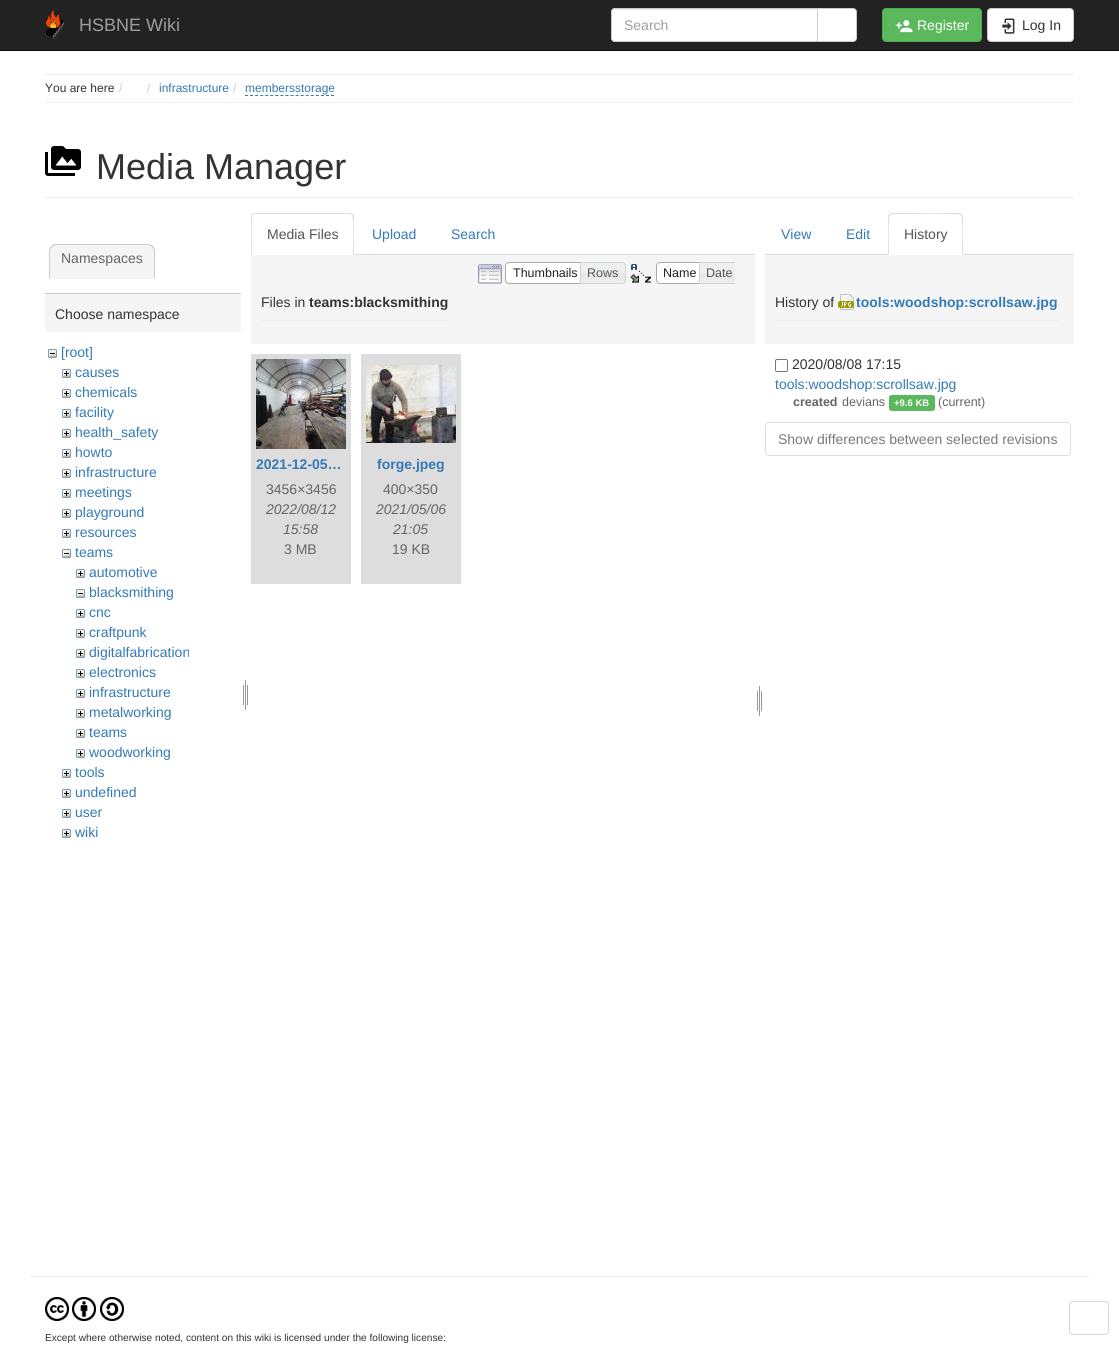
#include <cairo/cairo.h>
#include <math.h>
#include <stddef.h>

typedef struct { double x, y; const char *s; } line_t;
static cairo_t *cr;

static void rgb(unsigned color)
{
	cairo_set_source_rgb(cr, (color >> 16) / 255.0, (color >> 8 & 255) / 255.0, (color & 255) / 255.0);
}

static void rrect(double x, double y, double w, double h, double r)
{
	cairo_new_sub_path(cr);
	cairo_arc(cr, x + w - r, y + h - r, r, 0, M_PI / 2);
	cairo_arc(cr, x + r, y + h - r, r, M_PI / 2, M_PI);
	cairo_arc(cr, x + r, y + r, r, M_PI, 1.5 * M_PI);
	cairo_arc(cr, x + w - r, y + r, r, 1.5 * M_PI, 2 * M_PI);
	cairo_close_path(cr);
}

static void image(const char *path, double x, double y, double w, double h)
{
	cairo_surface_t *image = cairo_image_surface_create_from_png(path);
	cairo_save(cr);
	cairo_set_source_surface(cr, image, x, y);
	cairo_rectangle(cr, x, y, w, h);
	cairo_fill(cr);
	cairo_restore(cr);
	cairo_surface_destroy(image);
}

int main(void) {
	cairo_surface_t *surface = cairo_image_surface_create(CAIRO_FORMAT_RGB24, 1119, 1345);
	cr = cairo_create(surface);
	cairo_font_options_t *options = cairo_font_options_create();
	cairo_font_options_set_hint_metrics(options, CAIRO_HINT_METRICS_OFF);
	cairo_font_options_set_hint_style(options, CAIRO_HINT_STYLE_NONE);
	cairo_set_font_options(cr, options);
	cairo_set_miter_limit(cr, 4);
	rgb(0xffffff);
	cairo_paint(cr);
	rgb(0x222222);
	cairo_rectangle(cr, 0, 0, 1119, 50);
	cairo_fill(cr);
	rgb(0x080808);
	cairo_rectangle(cr, 0, 50, 1119, 1);
	cairo_fill(cr);
	image("img/1.png", 45, 10, 20, 30);
	rgb(0xffffff);
	cairo_new_path(cr);
	cairo_move_to(cr, 615, 8);
	cairo_line_to(cr, 818, 8);
	cairo_line_to(cr, 818, 42);
	cairo_line_to(cr, 615, 42);
	cairo_curve_to(cr, 613, 42, 611, 40, 611, 38);
	cairo_line_to(cr, 611, 12);
	cairo_curve_to(cr, 611, 10, 613, 8, 615, 8);
	cairo_close_path(cr);
	cairo_fill(cr);
	rgb(0xececec);
	cairo_new_path(cr);
	cairo_move_to(cr, 615, 10);
	cairo_line_to(cr, 817, 10);
	cairo_line_to(cr, 817, 9);
	cairo_line_to(cr, 614, 9);
	cairo_curve_to(cr, 612, 10, 612, 11, 612, 13);
	cairo_curve_to(cr, 612, 11, 613, 10, 615, 10);
	cairo_close_path(cr);
	cairo_fill(cr);
	cairo_new_path(cr);
	cairo_move_to(cr, 615, 8.5);
	cairo_line_to(cr, 817.5, 8.5);
	cairo_line_to(cr, 817.5, 41.5);
	cairo_line_to(cr, 615, 41.5);
	cairo_curve_to(cr, 613, 41.5, 611.5, 40, 611.5, 38);
	cairo_line_to(cr, 611.5, 12);
	cairo_curve_to(cr, 611.5, 10, 613, 8.5, 615, 8.5);
	cairo_close_path(cr);
	rgb(0xcccccc);
	cairo_set_line_width(cr, 1);
	cairo_stroke(cr);
	rgb(0xffffff);
	cairo_new_path(cr);
	cairo_move_to(cr, 817.5, 8.5);
	cairo_line_to(cr, 853, 8.5);
	cairo_curve_to(cr, 855, 8.5, 856.5, 10, 856.5, 12);
	cairo_line_to(cr, 856.5, 38);
	cairo_curve_to(cr, 856.5, 40, 855, 41.5, 853, 41.5);
	cairo_line_to(cr, 817.5, 41.5);
	cairo_close_path(cr);
	cairo_fill_preserve(cr);
	rgb(0xcccccc);
	cairo_stroke(cr);
	rgb(0x5cb85c);
	rrect(882.5, 8.5, 99, 33, 3.5);
	cairo_fill_preserve(cr);
	rgb(0x4cae4c);
	cairo_stroke(cr);
	image("img/2.png", 895, 20, 18, 13);
	rgb(0xffffff);
	rrect(987.5, 8.5, 86, 33, 3.5);
	cairo_fill_preserve(cr);
	rgb(0xcccccc);
	cairo_stroke(cr);
	image("img/3.png", 1002, 18, 13, 16);
	rgb(0xeeeeee);
	cairo_rectangle(cr, 45, 74, 1029, 1);
	cairo_fill(cr);
	cairo_new_path(cr);
	cairo_move_to(cr, 245, 95.5);
	cairo_line_to(cr, 334, 95.5);
	rgb(0x337ab7);
	cairo_set_dash(cr, (double[]){3, 2.06}, 2, 0);
	cairo_stroke(cr);
	rgb(0xeeeeee);
	cairo_rectangle(cr, 45, 102, 1029, 1);
	cairo_fill(cr);
	cairo_rectangle(cr, 45, 197, 1029, 1);
	cairo_fill(cr);
	image("img/4.png", 45, 146, 36, 30);
	rgb(0xf5f5f5);
	cairo_new_path(cr);
	cairo_move_to(cr, 56, 244);
	cairo_line_to(cr, 148, 244);
	cairo_curve_to(cr, 152, 244, 155, 247, 155, 251);
	cairo_line_to(cr, 155, 279);
	cairo_line_to(cr, 49, 279);
	cairo_line_to(cr, 49, 251);
	cairo_curve_to(cr, 49, 247, 52, 244, 56, 244);
	cairo_close_path(cr);
	cairo_fill(cr);
	rgb(0xcccccc);
	cairo_new_path(cr);
	cairo_move_to(cr, 56, 244);
	cairo_curve_to(cr, 54, 244, 52, 245, 51, 246);
	cairo_line_to(cr, 52, 247);
	cairo_line_to(cr, 55, 245);
	cairo_line_to(cr, 149, 245);
	cairo_line_to(cr, 152, 247);
	cairo_line_to(cr, 153, 246);
	cairo_curve_to(cr, 152, 245, 150, 244, 148, 244);
	cairo_close_path(cr);
	cairo_fill(cr);
	cairo_new_path(cr);
	cairo_move_to(cr, 155, 279);
	cairo_line_to(cr, 155, 251);
	cairo_curve_to(cr, 155, 249, 154, 247, 153, 246);
	cairo_line_to(cr, 152, 247);
	cairo_curve_to(cr, 153, 248, 154, 249.5, 154, 251);
	cairo_line_to(cr, 154, 278);
	cairo_close_path(cr);
	cairo_fill(cr);
	rgb(0xf5f5f5);
	cairo_new_path(cr);
	cairo_move_to(cr, 155, 279);
	cairo_line_to(cr, 154, 278);
	cairo_line_to(cr, 50, 278);
	cairo_line_to(cr, 49, 279);
	cairo_close_path(cr);
	cairo_fill(cr);
	rgb(0xcccccc);
	cairo_new_path(cr);
	cairo_move_to(cr, 49, 279);
	cairo_line_to(cr, 50, 278);
	cairo_line_to(cr, 50, 251);
	cairo_curve_to(cr, 50, 249.5, 51, 248, 52, 247);
	cairo_line_to(cr, 51, 246);
	cairo_curve_to(cr, 50, 247, 49, 249, 49, 251);
	cairo_close_path(cr);
	cairo_fill(cr);
	rgb(0xf5f5f5);
	cairo_rectangle(cr, 45, 294, 196, 38);
	cairo_fill(cr);
	rgb(0xcccccc);
	cairo_rectangle(cr, 45, 293, 196, 1);
	cairo_fill(cr);
	image("img/5.png", 48, 349, 9, 9);
	image("img/6.png", 62, 369, 9, 9);
	image("img/6.png", 62, 389, 9, 9);
	image("img/6.png", 62, 409, 9, 9);
	image("img/6.png", 62, 429, 9, 9);
	image("img/6.png", 62, 449, 9, 9);
	image("img/6.png", 62, 469, 9, 9);
	image("img/6.png", 62, 489, 9, 9);
	image("img/6.png", 62, 509, 9, 9);
	image("img/6.png", 62, 529, 9, 9);
	image("img/5.png", 62, 549, 9, 9);
	image("img/6.png", 76, 569, 9, 9);
	image("img/5.png", 76, 589, 9, 9);
	image("img/6.png", 76, 609, 9, 9);
	image("img/6.png", 76, 629, 9, 9);
	image("img/6.png", 76, 649, 9, 9);
	image("img/6.png", 76, 669, 9, 9);
	image("img/6.png", 76, 689, 9, 9);
	image("img/6.png", 76, 709, 9, 9);
	image("img/6.png", 76, 729, 9, 9);
	image("img/6.png", 76, 749, 9, 9);
	image("img/6.png", 62, 769, 9, 9);
	image("img/6.png", 62, 789, 9, 9);
	image("img/6.png", 62, 809, 9, 9);
	image("img/6.png", 62, 829, 9, 9);
	image("img/7.png", 243, 679, 5, 31);
	rgb(0xdddddd);
	cairo_rectangle(cr, 354, 254, 401, 1);
	cairo_fill(cr);
	cairo_new_path(cr);
	cairo_move_to(cr, 255, 213);
	cairo_line_to(cr, 252, 214);
	cairo_line_to(cr, 253, 215);
	cairo_line_to(cr, 255, 214);
	cairo_line_to(cr, 350, 214);
	cairo_line_to(cr, 352, 215);
	cairo_line_to(cr, 353, 214);
	cairo_line_to(cr, 350, 213);
	cairo_close_path(cr);
	cairo_fill(cr);
	cairo_new_path(cr);
	cairo_move_to(cr, 354, 255);
	cairo_line_to(cr, 354, 217);
	cairo_curve_to(cr, 354, 216, 354, 215, 353, 214);
	cairo_line_to(cr, 352, 215);
	cairo_curve_to(cr, 354, 217, 353, 249, 353, 254);
	cairo_close_path(cr);
	cairo_fill(cr);
	cairo_new_path(cr);
	cairo_move_to(cr, 251, 255);
	cairo_line_to(cr, 252, 254);
	cairo_curve_to(cr, 252, 249, 251, 217, 253, 215);
	cairo_line_to(cr, 252, 214);
	cairo_line_to(cr, 251, 217);
	cairo_close_path(cr);
	cairo_fill(cr);
	rgb(0xf5f5f5);
	cairo_rectangle(cr, 251, 255, 504, 89);
	cairo_fill(cr);
	image("img/8.png", 478, 264, 24, 20);
	rgb(0xffffff);
	cairo_new_path(cr);
	cairo_move_to(cr, 509, 262.5);
	cairo_line_to(cr, 584.5, 262.5);
	cairo_line_to(cr, 584.5, 283.5);
	cairo_line_to(cr, 509, 283.5);
	cairo_curve_to(cr, 507, 283.5, 505.5, 282, 505.5, 280);
	cairo_line_to(cr, 505.5, 266);
	cairo_curve_to(cr, 505.5, 264, 507, 262.5, 509, 262.5);
	cairo_close_path(cr);
	cairo_fill_preserve(cr);
	rgb(0xaaaaaa);
	cairo_set_dash(cr, NULL, 0, 0);
	cairo_stroke(cr);
	image("img/9.png", 581, 262, 45, 22);
	cairo_new_path(cr);
	cairo_move_to(cr, 580.5, 262.5);
	cairo_line_to(cr, 622, 262.5);
	cairo_curve_to(cr, 624, 262.5, 625.5, 264, 625.5, 266);
	cairo_line_to(cr, 625.5, 280);
	cairo_curve_to(cr, 625.5, 282, 624, 283.5, 622, 283.5);
	cairo_line_to(cr, 580.5, 283.5);
	cairo_close_path(cr);
	rgb(0xd3d3d3);
	cairo_stroke(cr);
	image("img/10.png", 630, 264, 21, 19);
	rgb(0xffffff);
	cairo_new_path(cr);
	cairo_move_to(cr, 660, 262.5);
	cairo_line_to(cr, 703.5, 262.5);
	cairo_line_to(cr, 703.5, 283.5);
	cairo_line_to(cr, 660, 283.5);
	cairo_curve_to(cr, 658, 283.5, 656.5, 282, 656.5, 280);
	cairo_line_to(cr, 656.5, 266);
	cairo_curve_to(cr, 656.5, 264, 658, 262.5, 660, 262.5);
	cairo_close_path(cr);
	cairo_fill_preserve(cr);
	rgb(0xaaaaaa);
	cairo_stroke(cr);
	image("img/11.png", 700, 263, 35, 20);
	cairo_save(cr);
	cairo_rectangle(cr, 470, 262, 265, 22);
	cairo_clip(cr);
	cairo_new_path(cr);
	cairo_move_to(cr, 699.5, 262.5);
	cairo_line_to(cr, 736, 262.5);
	cairo_curve_to(cr, 738, 262.5, 739.5, 264, 739.5, 266);
	cairo_line_to(cr, 739.5, 280);
	cairo_curve_to(cr, 739.5, 282, 738, 283.5, 736, 283.5);
	cairo_line_to(cr, 699.5, 283.5);
	cairo_close_path(cr);
	rgb(0xd3d3d3);
	cairo_stroke(cr);
	cairo_restore(cr);
	rgb(0xeeeeee);
	cairo_rectangle(cr, 261, 320, 187, 1);
	cairo_fill(cr);
	rgb(0xdddddd);
	cairo_rectangle(cr, 251, 354, 100, 230);
	cairo_fill(cr);
	image("img/12.png", 256, 359, 90, 90);
	cairo_rectangle(cr, 361, 354, 100, 230);
	cairo_fill(cr);
	image("img/13.png", 366, 365, 90, 78);
	image("img/7.png", 757, 685, 5, 31);
	cairo_rectangle(cr, 765, 254, 309, 1);
	cairo_fill(cr);
	rgb(0xffffff);
	cairo_new_path(cr);
	cairo_move_to(cr, 892, 213);
	cairo_line_to(cr, 959, 213);
	cairo_curve_to(cr, 961, 213, 963, 215, 963, 217);
	cairo_line_to(cr, 963, 255);
	cairo_line_to(cr, 888, 255);
	cairo_line_to(cr, 888, 217);
	cairo_curve_to(cr, 888, 215, 890, 213, 892, 213);
	cairo_close_path(cr);
	cairo_fill(cr);
	rgb(0xdddddd);
	cairo_new_path(cr);
	cairo_move_to(cr, 892, 213);
	cairo_line_to(cr, 889, 214);
	cairo_line_to(cr, 890, 215);
	cairo_line_to(cr, 892, 214);
	cairo_line_to(cr, 903, 214);
	cairo_curve_to(cr, 910, 214, 959, 213, 961, 215);
	cairo_line_to(cr, 962, 214);
	cairo_line_to(cr, 959, 213);
	cairo_close_path(cr);
	cairo_fill(cr);
	cairo_new_path(cr);
	cairo_move_to(cr, 963, 255);
	cairo_line_to(cr, 963, 217);
	cairo_curve_to(cr, 963, 216, 962, 215, 962, 214);
	cairo_line_to(cr, 961, 215);
	cairo_curve_to(cr, 963, 217, 962, 249, 962, 254);
	cairo_close_path(cr);
	cairo_fill(cr);
	cairo_new_path(cr);
	cairo_move_to(cr, 888, 255);
	cairo_line_to(cr, 889, 254);
	cairo_curve_to(cr, 889, 249, 888, 217, 890, 215);
	cairo_line_to(cr, 889, 214);
	cairo_line_to(cr, 888, 217);
	cairo_close_path(cr);
	cairo_fill(cr);
	rgb(0xf5f5f5);
	cairo_rectangle(cr, 765, 255, 309, 89);
	cairo_fill(cr);
	rgb(0xeeeeee);
	cairo_rectangle(cr, 775, 320, 283, 1);
	cairo_fill(cr);
	image("img/14.png", 838, 294, 16, 16);
	rrect(775.5, 359.5, 12, 12, 1.5);
	rgb(0x767676);
	cairo_stroke(cr);
	rgb(0x5cb85c);
	rrect(889, 395, 46, 16, 2.5);
	cairo_fill(cr);
	rrect(765.5, 422.5, 305, 33, 3.5);
	rgb(0xdedede);
	cairo_stroke(cr);
	rrect(1069.5, 1301.5, 39, 33, 3.5);
	rgb(0xd6d6d6);
	cairo_stroke(cr);
	rgb(0xeeeeee);
	cairo_rectangle(cr, 30, 1276, 1059, 1);
	cairo_fill(cr);
	image("img/15.png", 45, 1297, 24, 24);
	image("img/16.png", 72, 1297, 24, 24);
	image("img/17.png", 100, 1297, 24, 24);
	cairo_select_font_face(cr, "Liberation Sans", CAIRO_FONT_SLANT_NORMAL, CAIRO_FONT_WEIGHT_NORMAL);
	cairo_set_font_size(cr, 18);
	rgb(0x9d9d9d);
	cairo_move_to(cr, 79, 31);
	cairo_show_text(cr, "HSBNE Wiki");
	cairo_set_font_size(cr, 14);
	cairo_move_to(cr, 624, 30);
	cairo_show_text(cr, "Search");
	rgb(0xffffff);
	cairo_move_to(cr, 917, 30);
	cairo_show_text(cr, "Register");
	rgb(0x333333);
	cairo_move_to(cr, 1022, 30);
	cairo_show_text(cr, "Log In");
	cairo_set_font_size(cr, 12);
	cairo_move_to(cr, 45, 92);
	cairo_show_text(cr, "You are here");
	rgb(0xcccccc);
	cairo_move_to(cr, 119, 92);
	cairo_show_text(cr, "/");
	cairo_move_to(cr, 147, 92);
	cairo_show_text(cr, "/");
	rgb(0x337ab7);
	cairo_move_to(cr, 159, 92);
	cairo_show_text(cr, "infrastructure");
	rgb(0xcccccc);
	cairo_move_to(cr, 233, 92);
	cairo_show_text(cr, "/");
	rgb(0x337ab7);
	cairo_move_to(cr, 245, 92);
	cairo_show_text(cr, "membersstorage");
	cairo_set_font_size(cr, 36);
	rgb(0x333333);
	cairo_move_to(cr, 96, 179);
	cairo_show_text(cr, "Media Manager");
	cairo_set_font_size(cr, 14);
	rgb(0x656565);
	cairo_move_to(cr, 61, 263);
	cairo_show_text(cr, "Namespaces");
	rgb(0x333333);
	cairo_move_to(cr, 55, 319);
	cairo_show_text(cr, "Choose namespace");
	rgb(0x337ab7);
	{
		static const line_t items[] = {
			{61, 357, "[root]"},
			{75, 377, "causes"},
			{75, 397, "chemicals"},
			{75, 417, "facility"},
			{75, 437, "health_safety"},
			{75, 457, "howto"},
			{75, 477, "infrastructure"},
			{75, 497, "meetings"},
			{75, 517, "playground"},
			{75, 537, "resources"},
			{75, 557, "teams"},
			{89, 577, "automotive"},
			{89, 597, "blacksmithing"},
			{89, 617, "cnc"},
			{89, 637, "craftpunk"},
			{89, 657, "digitalfabrication"},
			{89, 677, "electronics"},
			{89, 697, "infrastructure"},
			{89, 717, "metalworking"},
			{89, 737, "teams"},
			{89, 757, "woodworking"},
			{75, 777, "tools"},
			{75, 797, "undefined"},
			{75, 817, "user"},
			{75, 837, "wiki"},
		};
		for (size_t i = 0; i < sizeof items / sizeof *items; i++) {
			cairo_move_to(cr, items[i].x, items[i].y);
			cairo_show_text(cr, items[i].s);
		}
	}
	rgb(0x555555);
	cairo_move_to(cr, 267, 239);
	cairo_show_text(cr, "Media Files");
	rgb(0x337ab7);
	cairo_move_to(cr, 372, 239);
	cairo_show_text(cr, "Upload");
	cairo_move_to(cr, 451, 239);
	cairo_show_text(cr, "Search");
	cairo_set_font_size(cr, 12.5);
	rgb(0x212121);
	cairo_move_to(cr, 513, 277);
	cairo_show_text(cr, "Thumbnails");
	rgb(0x555555);
	cairo_move_to(cr, 587, 277);
	cairo_show_text(cr, "Rows");
	rgb(0x212121);
	cairo_move_to(cr, 663, 277);
	cairo_show_text(cr, "Name");
	rgb(0x555555);
	cairo_move_to(cr, 706, 277);
	cairo_show_text(cr, "Date");
	cairo_set_font_size(cr, 14);
	rgb(0x333333);
	cairo_move_to(cr, 261, 307);
	cairo_show_text(cr, "Files in");
	cairo_select_font_face(cr, "Liberation Sans", CAIRO_FONT_SLANT_NORMAL, CAIRO_FONT_WEIGHT_BOLD);
	cairo_move_to(cr, 309, 307);
	cairo_show_text(cr, "teams:blacksmithing");
	rgb(0x337ab7);
	cairo_move_to(cr, 256, 469);
	cairo_show_text(cr, "2021-12-05…");
	cairo_select_font_face(cr, "Liberation Sans", CAIRO_FONT_SLANT_NORMAL, CAIRO_FONT_WEIGHT_NORMAL);
	rgb(0x656565);
	cairo_move_to(cr, 266, 494);
	cairo_show_text(cr, "3456×3456");
	cairo_select_font_face(cr, "Liberation Sans", CAIRO_FONT_SLANT_ITALIC, CAIRO_FONT_WEIGHT_NORMAL);
	cairo_move_to(cr, 266, 514);
	cairo_show_text(cr, "2022/08/12");
	cairo_move_to(cr, 283, 534);
	cairo_show_text(cr, "15:58");
	cairo_select_font_face(cr, "Liberation Sans", CAIRO_FONT_SLANT_NORMAL, CAIRO_FONT_WEIGHT_NORMAL);
	cairo_move_to(cr, 284, 554);
	cairo_show_text(cr, "3 MB");
	cairo_select_font_face(cr, "Liberation Sans", CAIRO_FONT_SLANT_NORMAL, CAIRO_FONT_WEIGHT_BOLD);
	rgb(0x337ab7);
	cairo_move_to(cr, 377, 469);
	cairo_show_text(cr, "forge.jpeg");
	cairo_select_font_face(cr, "Liberation Sans", CAIRO_FONT_SLANT_NORMAL, CAIRO_FONT_WEIGHT_NORMAL);
	rgb(0x656565);
	cairo_move_to(cr, 383, 494);
	cairo_show_text(cr, "400×350");
	cairo_select_font_face(cr, "Liberation Sans", CAIRO_FONT_SLANT_ITALIC, CAIRO_FONT_WEIGHT_NORMAL);
	cairo_move_to(cr, 376, 514);
	cairo_show_text(cr, "2021/05/06");
	cairo_move_to(cr, 393, 534);
	cairo_show_text(cr, "21:05");
	cairo_select_font_face(cr, "Liberation Sans", CAIRO_FONT_SLANT_NORMAL, CAIRO_FONT_WEIGHT_NORMAL);
	cairo_move_to(cr, 392, 554);
	cairo_show_text(cr, "19 KB");
	rgb(0x337ab7);
	cairo_move_to(cr, 781, 239);
	cairo_show_text(cr, "View");
	cairo_move_to(cr, 846, 239);
	cairo_show_text(cr, "Edit");
	rgb(0x555555);
	cairo_move_to(cr, 904, 239);
	cairo_show_text(cr, "History");
	rgb(0x333333);
	cairo_move_to(cr, 775, 307);
	cairo_show_text(cr, "History of");
	cairo_select_font_face(cr, "Liberation Sans", CAIRO_FONT_SLANT_NORMAL, CAIRO_FONT_WEIGHT_BOLD);
	rgb(0x337ab7);
	cairo_move_to(cr, 856, 307);
	cairo_show_text(cr, "tools:woodshop:scrollsaw.jpg");
	cairo_select_font_face(cr, "Liberation Sans", CAIRO_FONT_SLANT_NORMAL, CAIRO_FONT_WEIGHT_NORMAL);
	rgb(0x333333);
	cairo_move_to(cr, 792, 369);
	cairo_show_text(cr, "2020/08/08 17:15");
	rgb(0x337ab7);
	cairo_move_to(cr, 775, 389);
	cairo_show_text(cr, "tools:woodshop:scrollsaw.jpg");
	cairo_select_font_face(cr, "Liberation Sans", CAIRO_FONT_SLANT_NORMAL, CAIRO_FONT_WEIGHT_BOLD);
	cairo_set_font_size(cr, 12.5);
	rgb(0x656565);
	cairo_move_to(cr, 793, 406);
	cairo_show_text(cr, "created");
	cairo_select_font_face(cr, "Liberation Sans", CAIRO_FONT_SLANT_NORMAL, CAIRO_FONT_WEIGHT_NORMAL);
	cairo_move_to(cr, 842, 406);
	cairo_show_text(cr, "devians");
	cairo_select_font_face(cr, "Liberation Sans", CAIRO_FONT_SLANT_NORMAL, CAIRO_FONT_WEIGHT_BOLD);
	cairo_set_font_size(cr, 9.5);
	rgb(0xffffff);
	cairo_move_to(cr, 894, 406);
	cairo_show_text(cr, "+9.6 KB");
	cairo_select_font_face(cr, "Liberation Sans", CAIRO_FONT_SLANT_NORMAL, CAIRO_FONT_WEIGHT_NORMAL);
	cairo_set_font_size(cr, 12.5);
	rgb(0x656565);
	cairo_move_to(cr, 938, 406);
	cairo_show_text(cr, "(current)");
	cairo_set_font_size(cr, 14);
	rgb(0x7a7a7a);
	cairo_move_to(cr, 778, 444);
	cairo_show_text(cr, "Show differences between selected revisions");
	cairo_set_font_size(cr, 10.1);
	rgb(0x333333);
	cairo_move_to(cr, 45, 1341);
	cairo_show_text(cr, "Except where otherwise noted, content on this wiki is licensed under the following license:");
	cairo_surface_write_to_png(surface, "page.png");
	cairo_font_options_destroy(options);
	cairo_destroy(cr);
	cairo_surface_destroy(surface);
	return 0;
}
